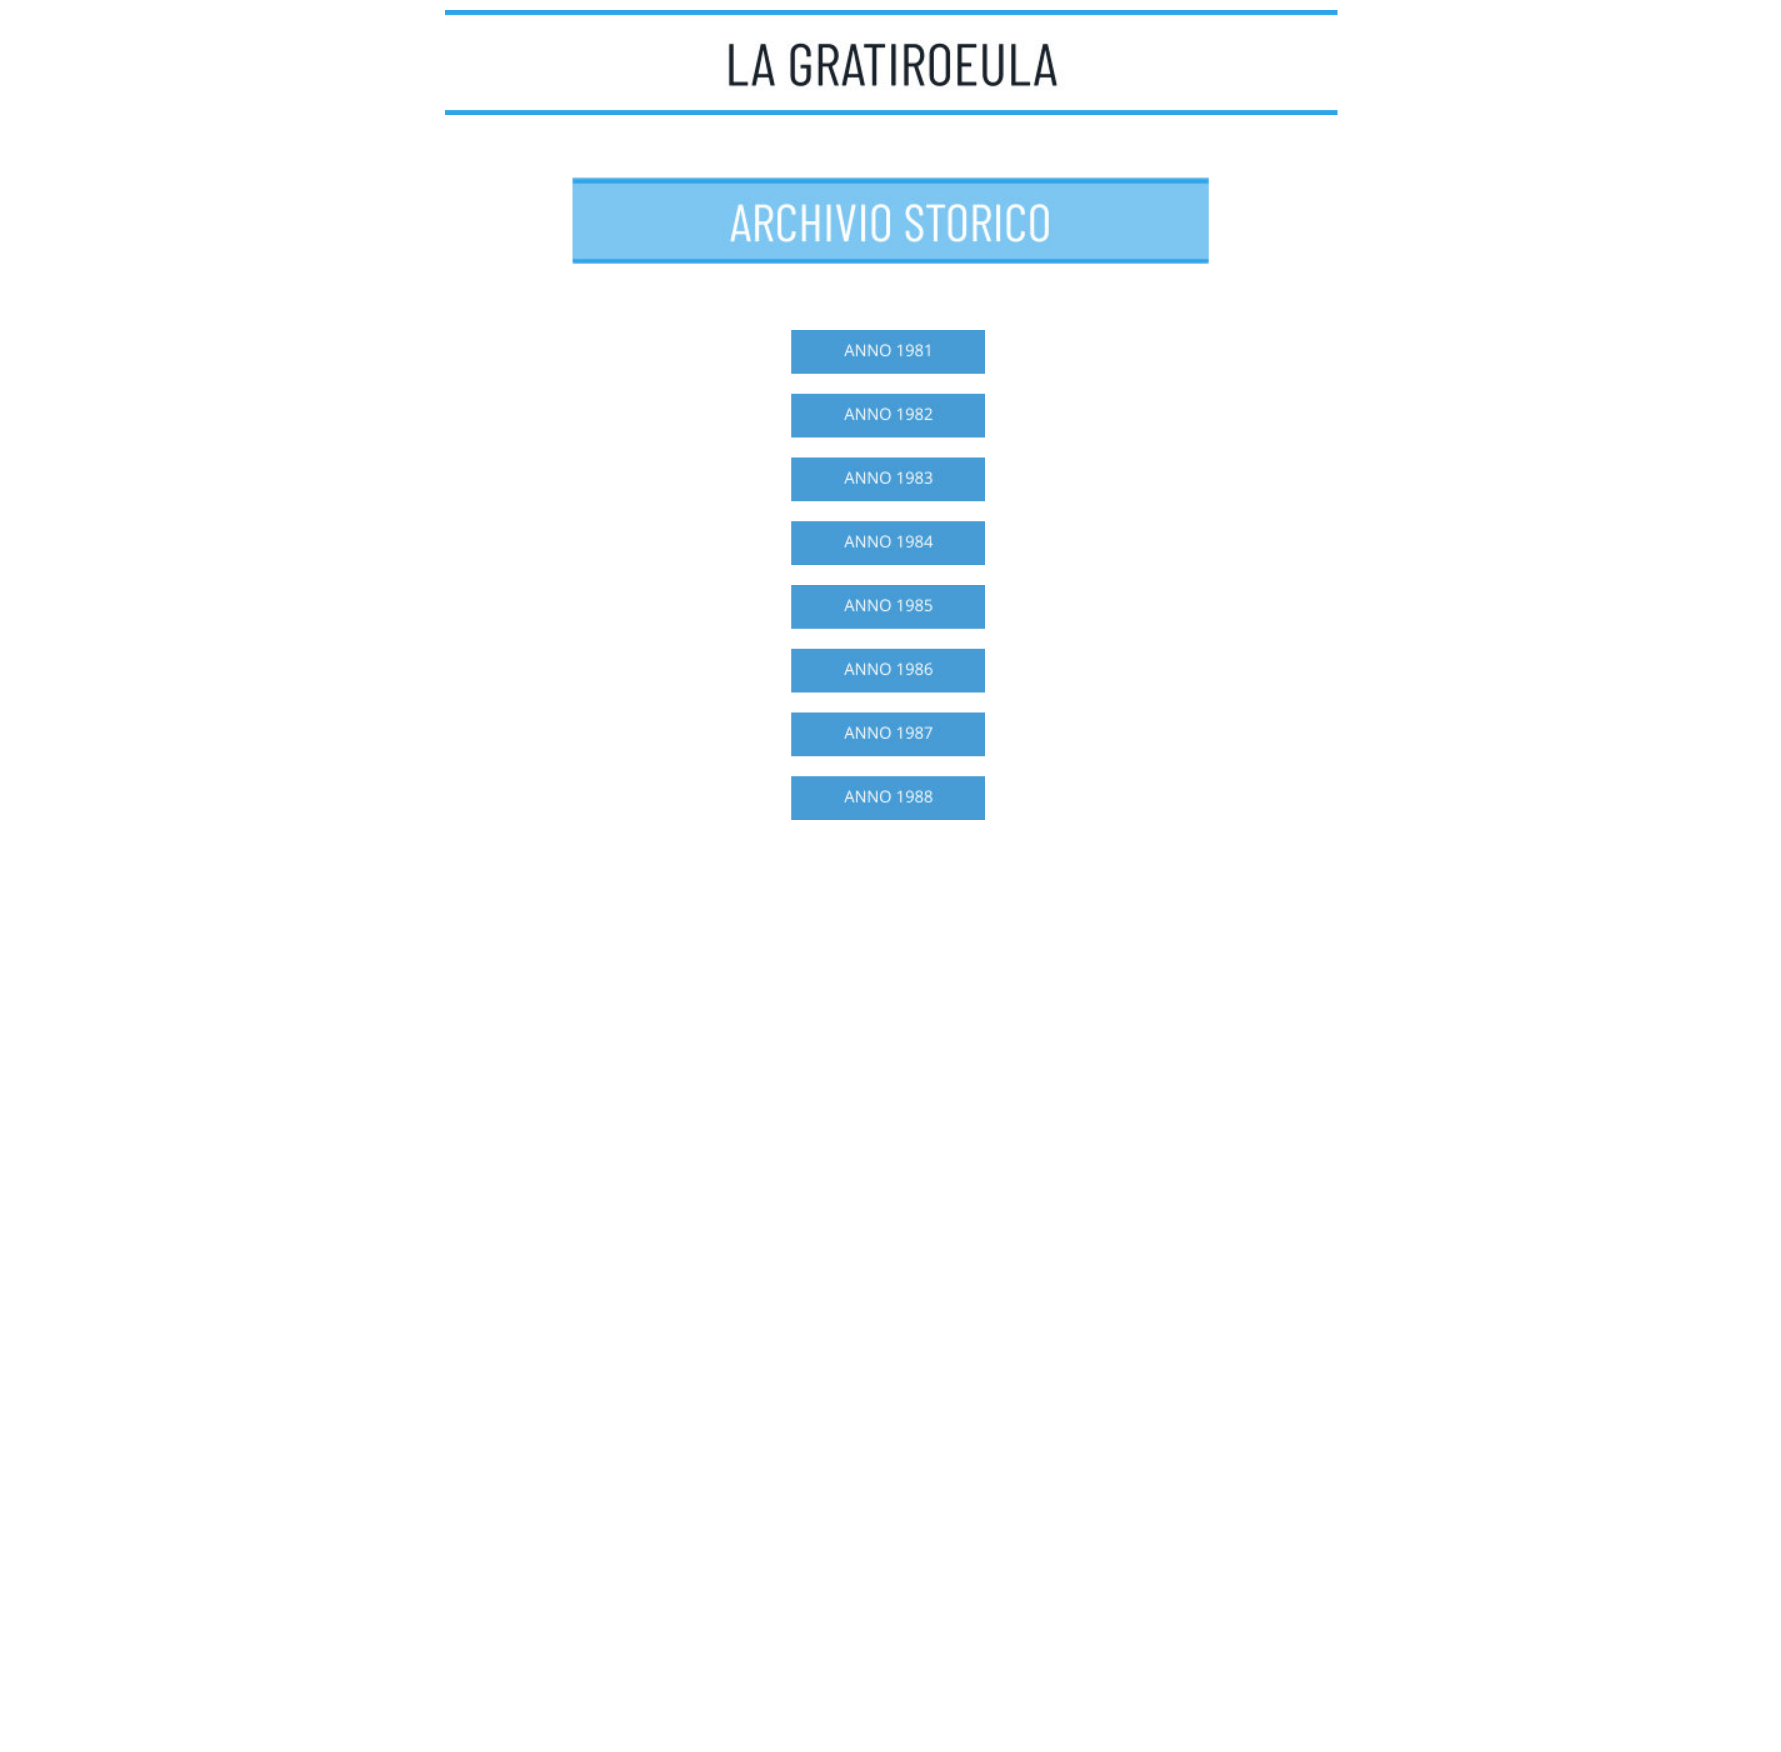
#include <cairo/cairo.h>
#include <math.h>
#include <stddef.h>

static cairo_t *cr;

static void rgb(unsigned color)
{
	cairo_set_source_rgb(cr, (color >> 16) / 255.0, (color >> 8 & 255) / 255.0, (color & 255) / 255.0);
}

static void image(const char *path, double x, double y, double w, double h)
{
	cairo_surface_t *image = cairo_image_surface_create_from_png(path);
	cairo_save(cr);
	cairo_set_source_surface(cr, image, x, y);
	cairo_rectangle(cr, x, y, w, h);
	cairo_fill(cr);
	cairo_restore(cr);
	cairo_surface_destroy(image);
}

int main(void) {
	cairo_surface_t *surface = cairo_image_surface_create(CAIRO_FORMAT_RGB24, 1781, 1752);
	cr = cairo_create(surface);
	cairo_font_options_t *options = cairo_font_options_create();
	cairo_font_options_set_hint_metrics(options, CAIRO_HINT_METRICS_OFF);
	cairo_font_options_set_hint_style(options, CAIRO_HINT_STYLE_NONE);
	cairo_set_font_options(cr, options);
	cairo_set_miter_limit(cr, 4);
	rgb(0xffffff);
	cairo_paint(cr);
	image("img/1.png", 445, 10, 893, 105);
	image("img/2.png", 572, 177, 637, 87);
	image("img/3.png", 791, 330, 194, 44);
	image("img/4.png", 791, 393, 194, 45);
	image("img/5.png", 791, 457, 194, 45);
	image("img/6.png", 791, 521, 194, 44);
	image("img/7.png", 791, 585, 194, 44);
	image("img/8.png", 791, 648, 194, 45);
	image("img/9.png", 791, 712, 194, 45);
	image("img/10.png", 791, 776, 194, 44);
	cairo_surface_write_to_png(surface, "page.png");
	cairo_font_options_destroy(options);
	cairo_destroy(cr);
	cairo_surface_destroy(surface);
	return 0;
}
